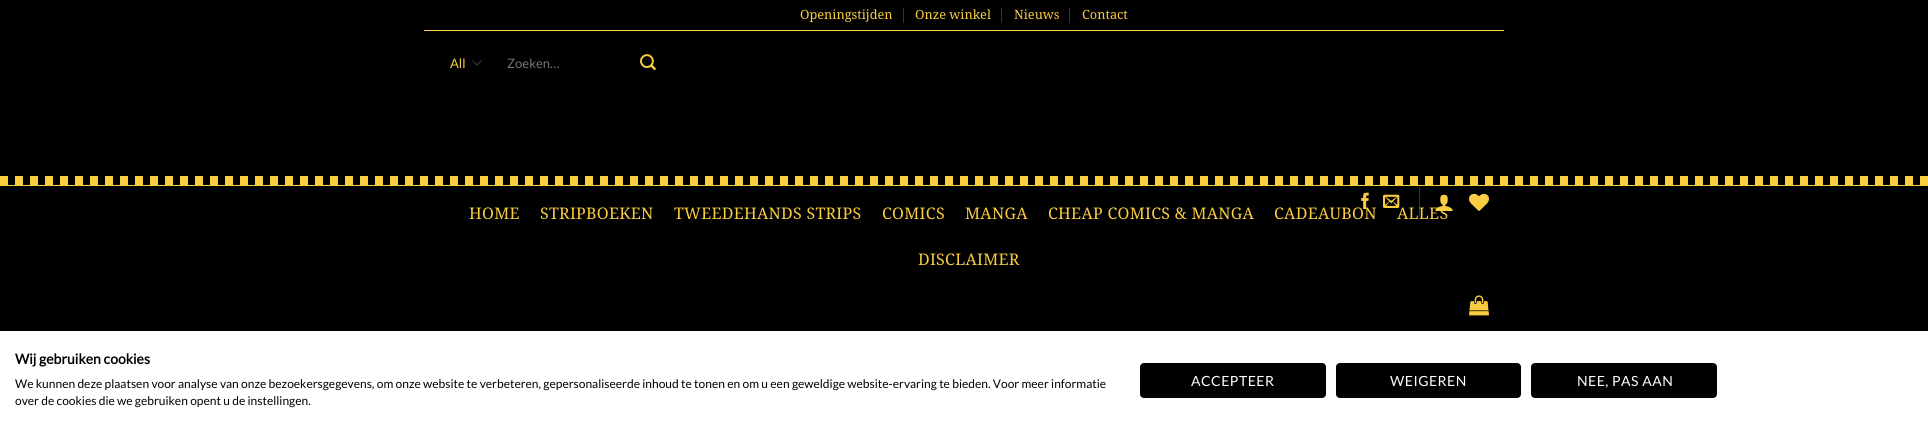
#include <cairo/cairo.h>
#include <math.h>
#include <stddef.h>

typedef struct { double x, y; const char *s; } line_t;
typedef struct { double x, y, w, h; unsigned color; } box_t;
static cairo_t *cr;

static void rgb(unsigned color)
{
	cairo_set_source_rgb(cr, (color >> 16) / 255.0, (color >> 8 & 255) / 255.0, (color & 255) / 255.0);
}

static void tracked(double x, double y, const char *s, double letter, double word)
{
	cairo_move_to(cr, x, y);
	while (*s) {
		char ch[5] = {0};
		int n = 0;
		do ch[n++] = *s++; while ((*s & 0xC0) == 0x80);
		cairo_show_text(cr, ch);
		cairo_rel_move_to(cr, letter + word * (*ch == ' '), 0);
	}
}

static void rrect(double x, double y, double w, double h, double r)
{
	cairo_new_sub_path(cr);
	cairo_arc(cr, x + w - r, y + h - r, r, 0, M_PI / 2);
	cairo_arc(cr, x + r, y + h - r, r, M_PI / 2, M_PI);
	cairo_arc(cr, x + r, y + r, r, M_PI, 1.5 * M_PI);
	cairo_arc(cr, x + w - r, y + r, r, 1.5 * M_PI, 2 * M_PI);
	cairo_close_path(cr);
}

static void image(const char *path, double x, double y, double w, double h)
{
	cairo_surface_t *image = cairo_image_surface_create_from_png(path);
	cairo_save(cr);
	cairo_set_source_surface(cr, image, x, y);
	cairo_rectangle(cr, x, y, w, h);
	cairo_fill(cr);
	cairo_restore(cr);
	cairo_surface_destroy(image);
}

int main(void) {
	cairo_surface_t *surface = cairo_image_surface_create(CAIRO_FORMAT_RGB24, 1928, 437);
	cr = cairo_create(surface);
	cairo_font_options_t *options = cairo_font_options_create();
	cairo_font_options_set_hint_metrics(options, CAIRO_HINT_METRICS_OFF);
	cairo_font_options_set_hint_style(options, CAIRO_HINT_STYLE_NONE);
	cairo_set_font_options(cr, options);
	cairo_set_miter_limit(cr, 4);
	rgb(0x000000);
	cairo_paint(cr);
	{
		static const box_t items[] = {
			{424, 30, 1080, 1, 0xf8cd40},
			{903, 8, 1, 15, 0x333333},
			{1001, 8, 1, 15, 0x333333},
			{1069, 8, 1, 15, 0x333333},
		};
		for (size_t i = 0; i < sizeof items / sizeof *items; i++) {
			rgb(items[i].color);
			cairo_rectangle(cr, items[i].x, items[i].y, items[i].w, items[i].h);
			cairo_fill(cr);
		}
	}
	cairo_new_path(cr);
	cairo_move_to(cr, 473, 61);
	cairo_line_to(cr, 477, 65);
	cairo_line_to(cr, 481, 61);
	cairo_set_line_width(cr, 1.3);
	cairo_set_line_cap(cr, CAIRO_LINE_CAP_ROUND);
	cairo_set_line_join(cr, CAIRO_LINE_JOIN_ROUND);
	cairo_stroke(cr);
	image("img/1.png", 640, 54, 16, 16);
	image("img/5.png", 1469, 193, 20, 18);
	image("img/6.png", 0, 176, 1928, 9);
	rgb(0xf9cd41);
	cairo_rectangle(cr, 0, 185, 1928, 1);
	cairo_fill(cr);
	image("img/7.png", 1469, 295, 20, 21);
	rgb(0xffffff);
	cairo_rectangle(cr, 0, 331, 1928, 106);
	cairo_fill(cr);
	rgb(0x000000);
	rrect(1140.5, 363.5, 185, 34, 3.5);
	cairo_fill_preserve(cr);
	cairo_set_line_width(cr, 1);
	cairo_set_line_cap(cr, CAIRO_LINE_CAP_BUTT);
	cairo_set_line_join(cr, CAIRO_LINE_JOIN_MITER);
	cairo_stroke(cr);
	rrect(1336.5, 363.5, 184, 34, 3.5);
	cairo_fill_preserve(cr);
	cairo_stroke(cr);
	rrect(1531.5, 363.5, 185, 34, 3.5);
	cairo_fill_preserve(cr);
	cairo_stroke(cr);
	cairo_select_font_face(cr, "Droid Serif", CAIRO_FONT_SLANT_NORMAL, CAIRO_FONT_WEIGHT_NORMAL);
	cairo_set_font_size(cr, 12.75);
	rgb(0xf8cd40);
	{
		static const line_t items[] = {
			{800, 19, "Openingstijden"},
			{915, 19, "Onze winkel"},
			{1014, 19, "Nieuws"},
			{1082, 19, "Contact"},
		};
		for (size_t i = 0; i < sizeof items / sizeof *items; i++) {
			cairo_move_to(cr, items[i].x, items[i].y);
			cairo_show_text(cr, items[i].s);
		}
	}
	cairo_select_font_face(cr, "Lato", CAIRO_FONT_SLANT_NORMAL, CAIRO_FONT_WEIGHT_NORMAL);
	cairo_set_font_size(cr, 13);
	cairo_move_to(cr, 450, 68);
	cairo_show_text(cr, "All");
	rgb(0x757575);
	cairo_move_to(cr, 507, 68);
	cairo_show_text(cr, "Zoeken…");
	cairo_select_font_face(cr, "Droid Serif", CAIRO_FONT_SLANT_NORMAL, CAIRO_FONT_WEIGHT_NORMAL);
	cairo_set_font_size(cr, 16);
	rgb(0xf8cd40);
	{
		static const line_t items[] = {
			{469, 219, "HOME"},
			{540, 219, "STRIPBOEKEN"},
			{674, 219, "TWEEDEHANDS STRIPS"},
			{882, 219, "COMICS"},
			{965, 219, "MANGA"},
			{1048, 219, "CHEAP COMICS & MANGA"},
			{1274, 219, "CADEAUBON"},
		};
		for (size_t i = 0; i < sizeof items / sizeof *items; i++) {
			tracked(items[i].x, items[i].y, items[i].s, 0.3, 0);
		}
	}
	image("img/2.png", 1361, 192, 8, 17);
	tracked(1397, 219, "ALLES", 0.3, 0);
	image("img/4.png", 1435, 194, 18, 17);
	cairo_set_source_rgba(cr, 1, 1, 1, 0.2);
	cairo_rectangle(cr, 1419, 187, 1, 30);
	cairo_fill(cr);
	image("img/3.png", 1383, 194, 17, 14);
	rgb(0xf8cd40);
	tracked(918, 265, "DISCLAIMER", 0.3, 0);
	cairo_select_font_face(cr, "Lato", CAIRO_FONT_SLANT_NORMAL, CAIRO_FONT_WEIGHT_BOLD);
	cairo_set_font_size(cr, 14);
	rgb(0x000000);
	cairo_move_to(cr, 15, 364);
	cairo_show_text(cr, "Wij gebruiken cookies");
	cairo_select_font_face(cr, "Lato", CAIRO_FONT_SLANT_NORMAL, CAIRO_FONT_WEIGHT_NORMAL);
	cairo_set_font_size(cr, 12);
	cairo_move_to(cr, 15, 388);
	cairo_show_text(cr, "We kunnen deze plaatsen voor analyse van onze bezoekersgegevens, om onze website te verbeteren, gepersonaliseerde inhoud te tonen en om u een geweldige website-ervaring te bieden. Voor meer informatie");
	cairo_move_to(cr, 15, 405);
	cairo_show_text(cr, "over de cookies die we gebruiken opent u de instellingen.");
	cairo_set_font_size(cr, 14);
	rgb(0xffffff);
	{
		static const line_t items[] = {
			{1191, 386, "ACCEPTEER"},
			{1390, 386, "WEIGEREN"},
			{1577, 386, "NEE, PAS AAN"},
		};
		for (size_t i = 0; i < sizeof items / sizeof *items; i++) {
			tracked(items[i].x, items[i].y, items[i].s, 0.5, 0);
		}
	}
	cairo_surface_write_to_png(surface, "page.png");
	cairo_font_options_destroy(options);
	cairo_destroy(cr);
	cairo_surface_destroy(surface);
	return 0;
}
